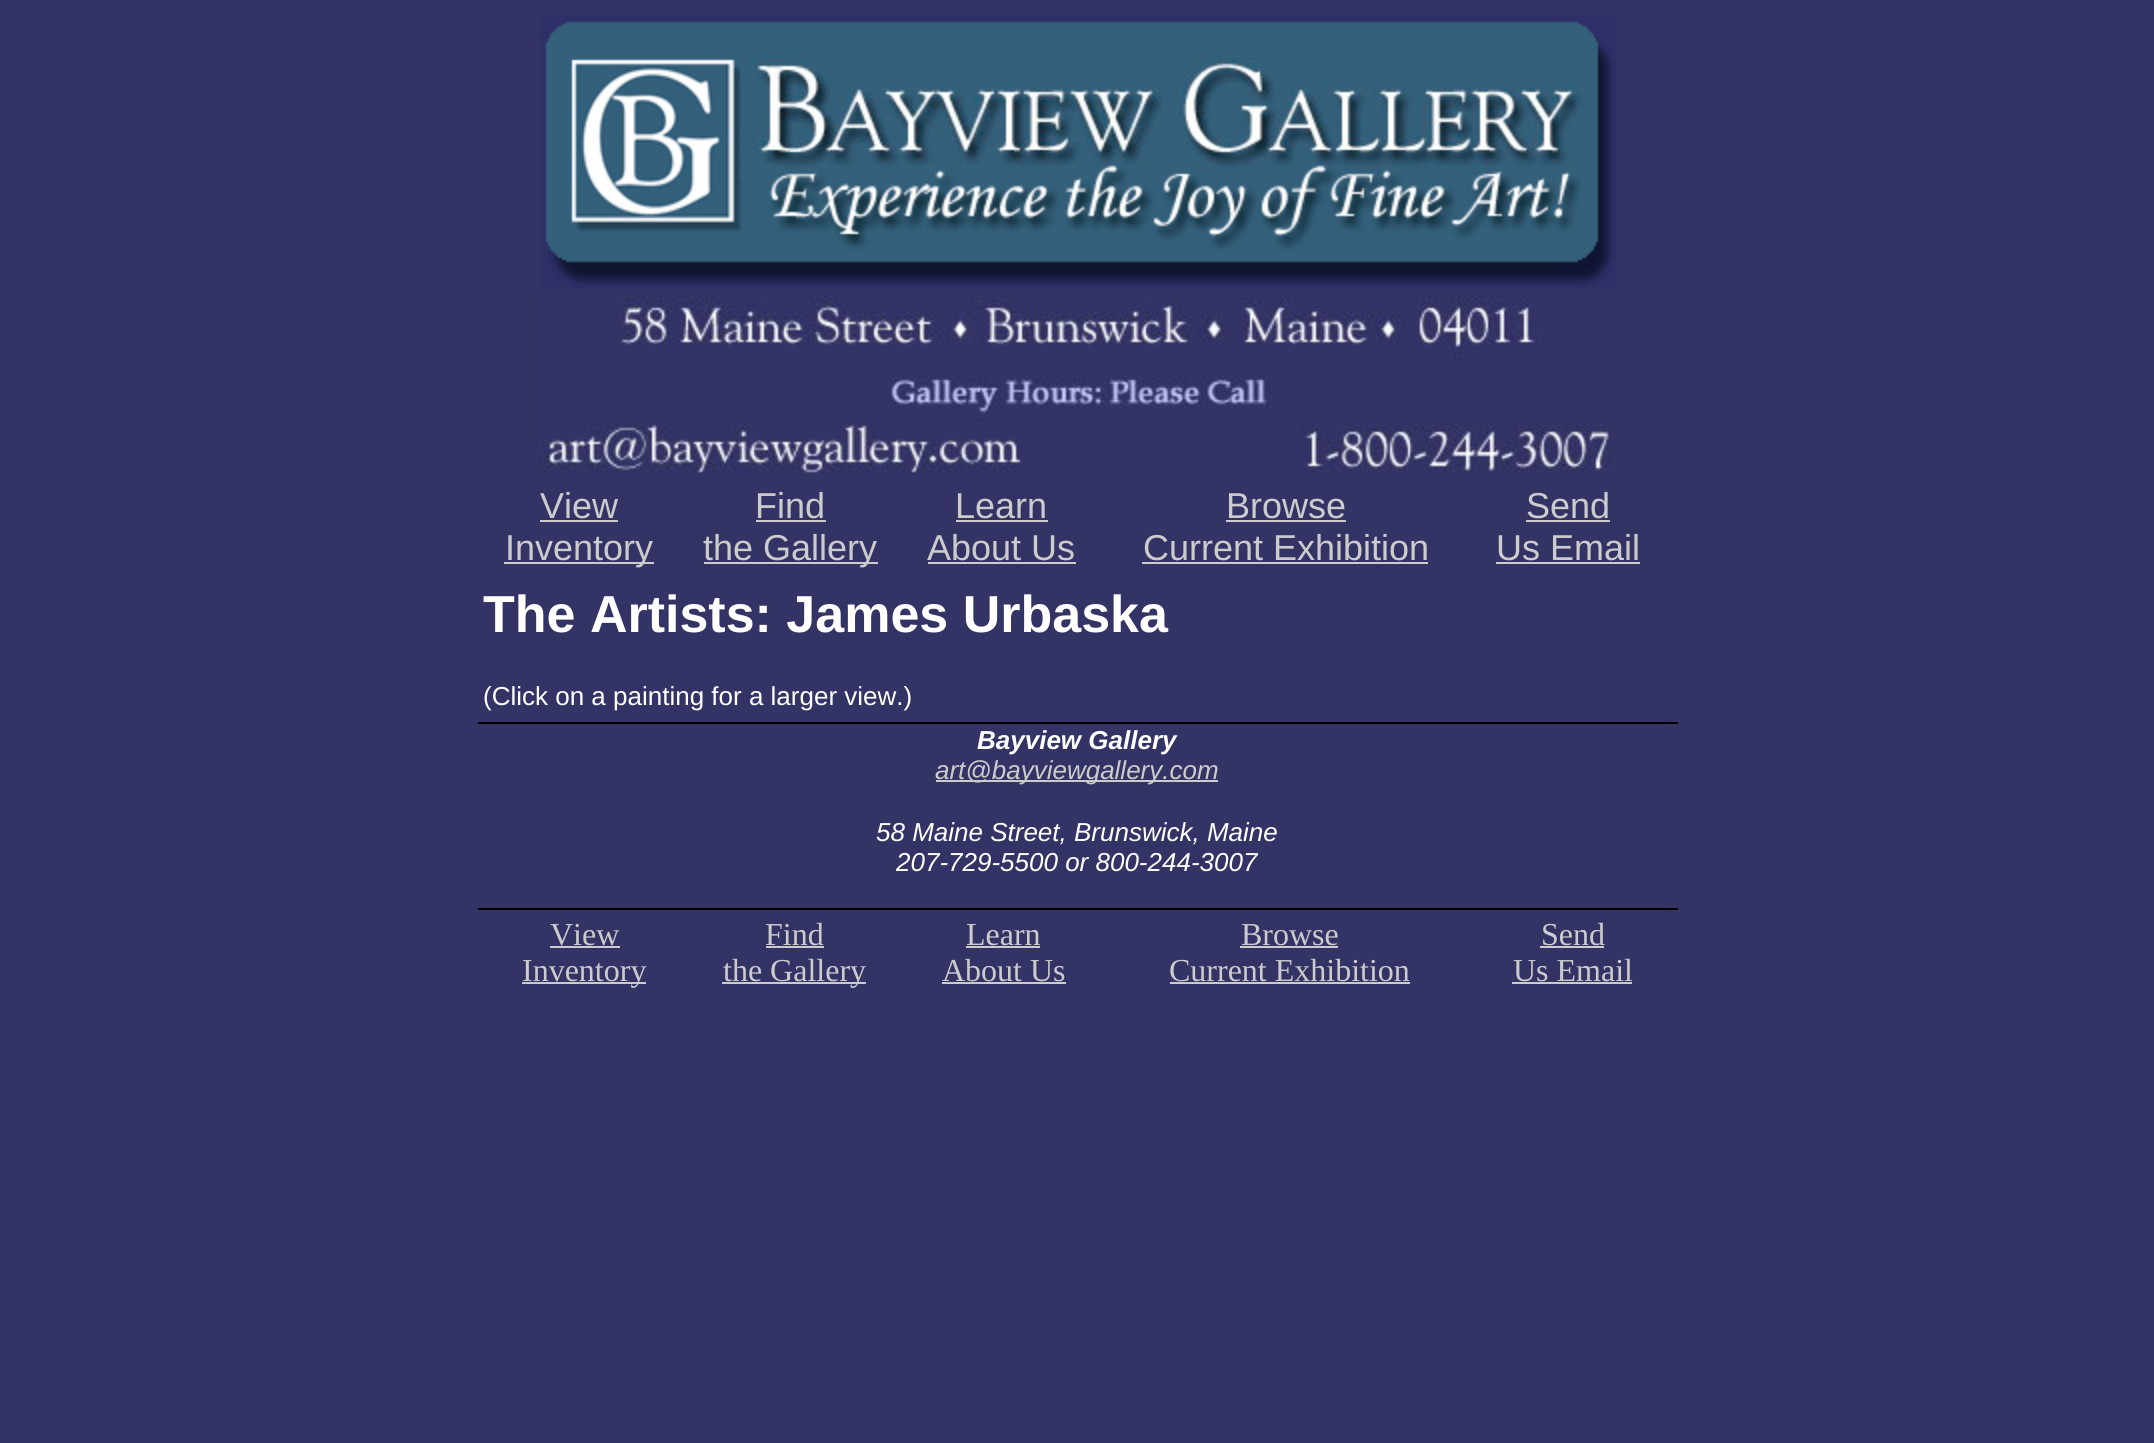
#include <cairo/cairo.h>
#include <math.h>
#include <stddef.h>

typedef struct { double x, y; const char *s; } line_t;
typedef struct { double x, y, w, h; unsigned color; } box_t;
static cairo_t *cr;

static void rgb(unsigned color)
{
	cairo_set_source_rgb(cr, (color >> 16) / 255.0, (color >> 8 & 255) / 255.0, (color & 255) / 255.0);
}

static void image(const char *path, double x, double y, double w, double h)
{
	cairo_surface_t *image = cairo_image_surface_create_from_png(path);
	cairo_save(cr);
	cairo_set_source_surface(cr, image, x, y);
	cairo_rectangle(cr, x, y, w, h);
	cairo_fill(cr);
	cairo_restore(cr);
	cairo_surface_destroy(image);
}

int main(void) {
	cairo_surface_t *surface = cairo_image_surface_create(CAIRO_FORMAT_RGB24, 2154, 1443);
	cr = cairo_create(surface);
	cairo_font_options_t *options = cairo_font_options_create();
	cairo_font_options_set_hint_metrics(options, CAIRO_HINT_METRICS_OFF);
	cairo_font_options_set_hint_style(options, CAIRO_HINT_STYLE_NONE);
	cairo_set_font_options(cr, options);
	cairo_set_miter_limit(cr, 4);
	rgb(0x333366);
	cairo_paint(cr);
	image("img/1.png", 540, 16, 1076, 272);
	image("img/2.png", 540, 296, 1072, 177);
	{
		static const box_t items[] = {
			{540, 520, 78, 2, 0xcccccc},
			{504, 562, 150, 2, 0xcccccc},
			{756, 520, 70, 2, 0xcccccc},
			{704, 562, 174, 2, 0xcccccc},
			{956, 520, 92, 2, 0xcccccc},
			{928, 562, 148, 2, 0xcccccc},
			{1226, 520, 120, 2, 0xcccccc},
			{1142, 562, 286, 2, 0xcccccc},
			{1526, 520, 84, 2, 0xcccccc},
			{1496, 562, 144, 2, 0xcccccc},
			{478, 722, 1200, 2, 0x000000},
			{936, 780, 282, 2, 0xcccccc},
			{478, 908, 1200, 2, 0x000000},
			{550, 946, 70, 2, 0xcccccc},
			{522, 982, 124, 2, 0xcccccc},
			{766, 946, 58, 2, 0xcccccc},
			{722, 982, 144, 2, 0xcccccc},
			{966, 946, 74, 2, 0xcccccc},
			{942, 982, 124, 2, 0xcccccc},
			{1240, 946, 98, 2, 0xcccccc},
			{1170, 982, 240, 2, 0xcccccc},
			{1540, 946, 64, 2, 0xcccccc},
			{1512, 982, 120, 2, 0xcccccc},
		};
		for (size_t i = 0; i < sizeof items / sizeof *items; i++) {
			rgb(items[i].color);
			cairo_rectangle(cr, items[i].x, items[i].y, items[i].w, items[i].h);
			cairo_fill(cr);
		}
	}
	cairo_select_font_face(cr, "Liberation Sans", CAIRO_FONT_SLANT_NORMAL, CAIRO_FONT_WEIGHT_NORMAL);
	cairo_set_font_size(cr, 36);
	{
		static const line_t items[] = {
			{540, 518, "View"},
			{505, 560, "Inventory"},
			{755, 518, "Find"},
			{703, 560, "the Gallery"},
			{955, 518, "Learn"},
			{927, 560, "About Us"},
			{1226, 518, "Browse"},
			{1143, 560, "Current Exhibition"},
			{1526, 518, "Send"},
			{1496, 560, "Us Email"},
		};
		for (size_t i = 0; i < sizeof items / sizeof *items; i++) {
			cairo_move_to(cr, items[i].x, items[i].y);
			cairo_show_text(cr, items[i].s);
		}
	}
	cairo_select_font_face(cr, "Liberation Sans", CAIRO_FONT_SLANT_NORMAL, CAIRO_FONT_WEIGHT_BOLD);
	cairo_set_font_size(cr, 52);
	rgb(0xffffff);
	cairo_move_to(cr, 483, 632);
	cairo_show_text(cr, "The Artists: James Urbaska");
	cairo_select_font_face(cr, "Liberation Sans", CAIRO_FONT_SLANT_NORMAL, CAIRO_FONT_WEIGHT_NORMAL);
	cairo_set_font_size(cr, 26);
	cairo_move_to(cr, 483, 705);
	cairo_show_text(cr, "(Click on a painting for a larger view.)");
	cairo_select_font_face(cr, "Liberation Sans", CAIRO_FONT_SLANT_ITALIC, CAIRO_FONT_WEIGHT_BOLD);
	cairo_move_to(cr, 977, 749);
	cairo_show_text(cr, "Bayview Gallery");
	cairo_select_font_face(cr, "Liberation Sans", CAIRO_FONT_SLANT_ITALIC, CAIRO_FONT_WEIGHT_NORMAL);
	rgb(0xcccccc);
	cairo_move_to(cr, 935, 779);
	cairo_show_text(cr, "art@bayviewgallery.com");
	rgb(0xffffff);
	cairo_move_to(cr, 876, 841);
	cairo_show_text(cr, "58 Maine Street, Brunswick, Maine");
	cairo_move_to(cr, 896, 871);
	cairo_show_text(cr, "207-729-5500 or 800-244-3007");
	cairo_select_font_face(cr, "Liberation Serif", CAIRO_FONT_SLANT_NORMAL, CAIRO_FONT_WEIGHT_NORMAL);
	cairo_set_font_size(cr, 32);
	rgb(0xcccccc);
	{
		static const line_t items[] = {
			{550, 945, "View"},
			{522, 981, "Inventory"},
			{765, 945, "Find"},
			{723, 981, "the Gallery"},
			{966, 945, "Learn"},
			{942, 981, "About Us"},
			{1241, 945, "Browse"},
			{1169, 981, "Current Exhibition"},
			{1541, 945, "Send"},
			{1513, 981, "Us Email"},
		};
		for (size_t i = 0; i < sizeof items / sizeof *items; i++) {
			cairo_move_to(cr, items[i].x, items[i].y);
			cairo_show_text(cr, items[i].s);
		}
	}
	cairo_surface_write_to_png(surface, "page.png");
	cairo_font_options_destroy(options);
	cairo_destroy(cr);
	cairo_surface_destroy(surface);
	return 0;
}
